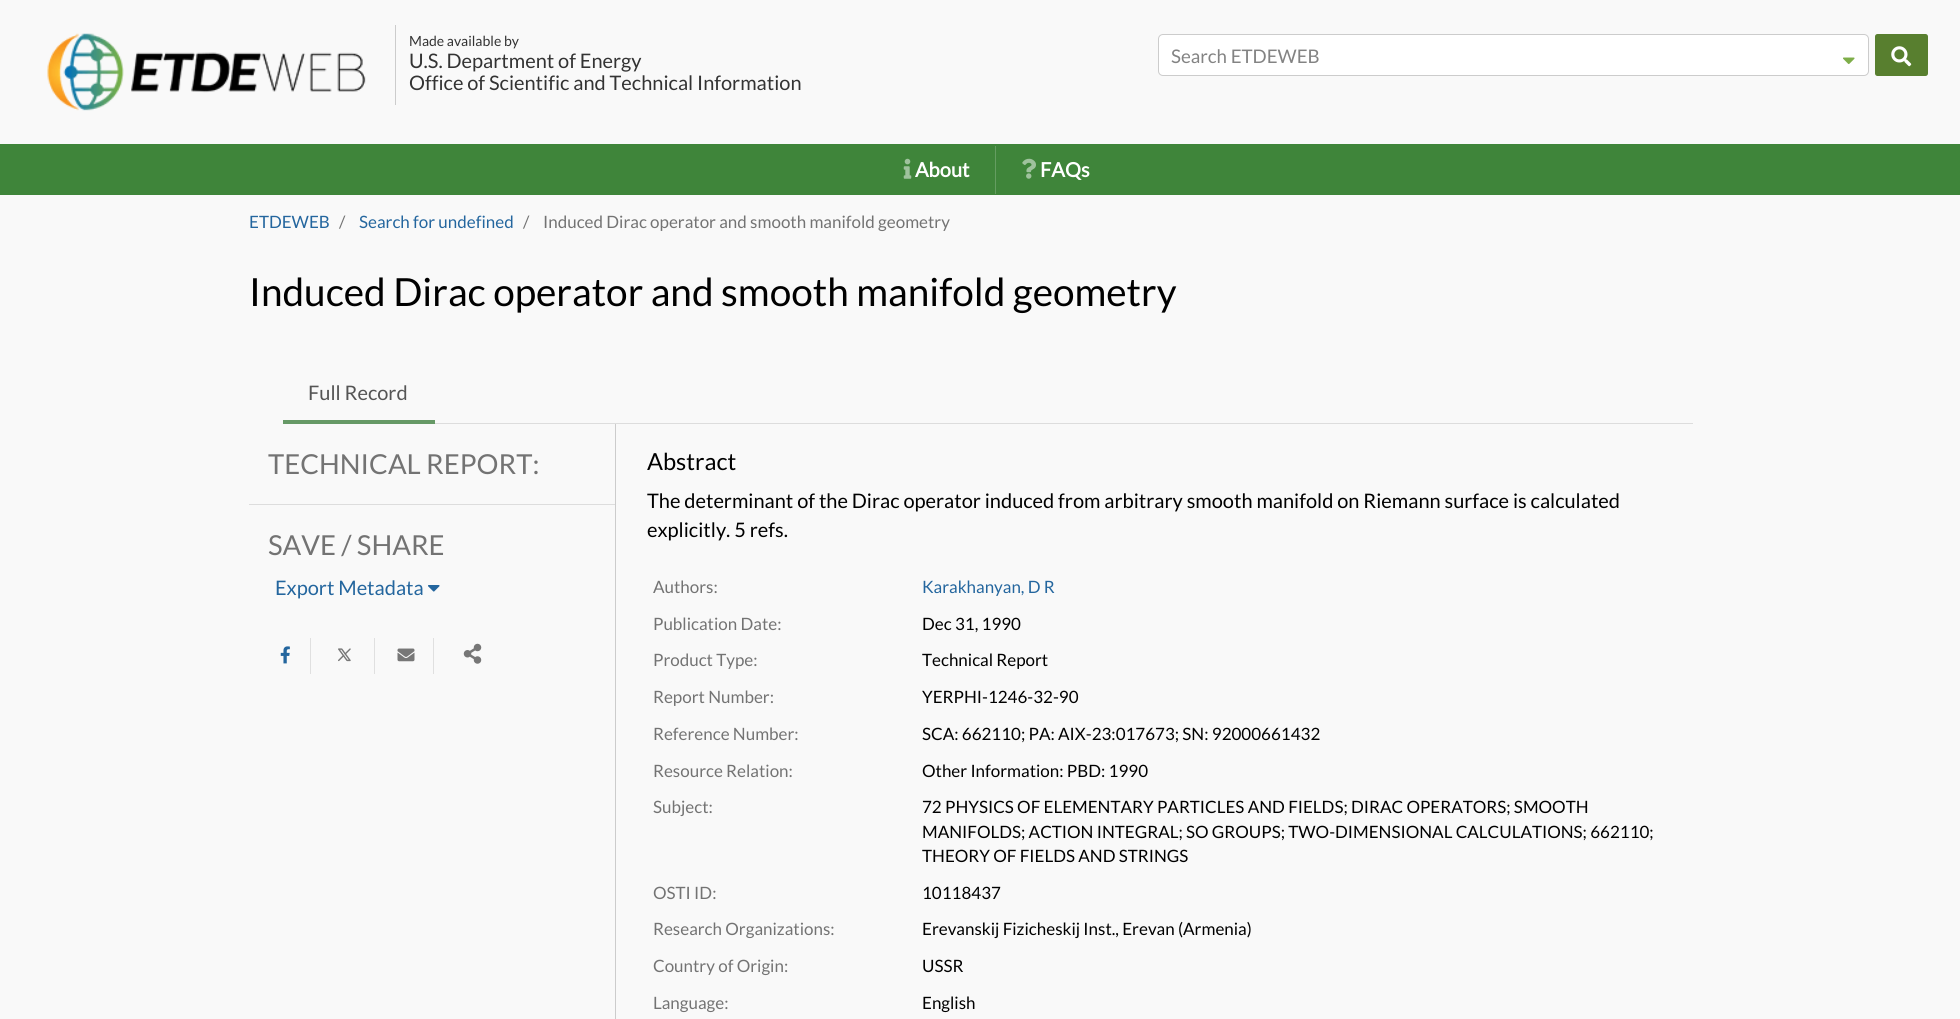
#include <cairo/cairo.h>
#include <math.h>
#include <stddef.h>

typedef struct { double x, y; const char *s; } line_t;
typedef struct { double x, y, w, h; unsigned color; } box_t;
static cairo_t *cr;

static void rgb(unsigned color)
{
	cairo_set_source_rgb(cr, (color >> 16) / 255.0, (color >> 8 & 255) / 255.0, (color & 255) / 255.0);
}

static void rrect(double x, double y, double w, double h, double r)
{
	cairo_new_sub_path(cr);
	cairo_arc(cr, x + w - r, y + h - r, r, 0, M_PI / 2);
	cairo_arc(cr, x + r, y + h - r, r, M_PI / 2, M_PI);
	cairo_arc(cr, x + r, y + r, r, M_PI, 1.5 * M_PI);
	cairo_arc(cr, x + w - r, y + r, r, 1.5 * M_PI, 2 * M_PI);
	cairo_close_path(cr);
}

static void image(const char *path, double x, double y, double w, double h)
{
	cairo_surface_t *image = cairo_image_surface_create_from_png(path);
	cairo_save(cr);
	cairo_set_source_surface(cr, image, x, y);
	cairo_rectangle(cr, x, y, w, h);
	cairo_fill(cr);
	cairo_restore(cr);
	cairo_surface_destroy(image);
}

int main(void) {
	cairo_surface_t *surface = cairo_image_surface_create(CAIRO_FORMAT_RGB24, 1960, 1019);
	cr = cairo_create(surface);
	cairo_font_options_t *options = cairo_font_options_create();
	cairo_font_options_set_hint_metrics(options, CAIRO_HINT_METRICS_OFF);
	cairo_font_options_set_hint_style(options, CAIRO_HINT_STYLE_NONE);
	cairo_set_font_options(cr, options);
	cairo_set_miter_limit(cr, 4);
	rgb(0xf9f9f9);
	cairo_paint(cr);
	image("img/1.png", 47, 33, 319, 78);
	rgb(0xcccccc);
	cairo_rectangle(cr, 395, 25, 1, 80);
	cairo_fill(cr);
	rgb(0xffffff);
	rrect(1158.5, 34.5, 710, 41, 4.5);
	cairo_fill_preserve(cr);
	rgb(0xcccccc);
	cairo_set_line_width(cr, 1);
	cairo_stroke(cr);
	image("img/2.png", 1843, 57, 12, 8);
	rgb(0x587f2f);
	rrect(1875, 34, 53, 42, 2.5);
	cairo_fill(cr);
	image("img/3.png", 1891, 46, 21, 21);
	rgb(0x3f853a);
	cairo_rectangle(cr, 0, 144, 1960, 51);
	cairo_fill(cr);
	rgb(0x659d61);
	cairo_rectangle(cr, 995, 146, 1, 48);
	cairo_fill(cr);
	image("img/4.png", 903, 158, 9, 21);
	image("img/5.png", 1022, 158, 14, 21);
	{
		static const box_t items[] = {
			{435, 423, 1258, 1, 0xdddddd},
			{283, 420, 152, 4, 0x669966},
			{249, 504, 366, 1, 0xdddddd},
		};
		for (size_t i = 0; i < sizeof items / sizeof *items; i++) {
			rgb(items[i].color);
			cairo_rectangle(cr, items[i].x, items[i].y, items[i].w, items[i].h);
			cairo_fill(cr);
		}
	}
	image("img/6.png", 428, 585, 12, 7);
	rgb(0xe0e0e0);
	cairo_rectangle(cr, 310, 638, 1, 36);
	cairo_fill(cr);
	image("img/7.png", 280, 646, 10, 18);
	cairo_rectangle(cr, 374, 638, 1, 36);
	cairo_fill(cr);
	image("img/8.png", 338, 648, 13, 14);
	cairo_rectangle(cr, 433, 638, 1, 36);
	cairo_fill(cr);
	image("img/9.png", 397, 648, 18, 14);
	image("img/10.png", 463, 643, 19, 21);
	rgb(0xcccccc);
	cairo_rectangle(cr, 615, 424, 1, 595);
	cairo_fill(cr);
	cairo_select_font_face(cr, "Lato", CAIRO_FONT_SLANT_NORMAL, CAIRO_FONT_WEIGHT_NORMAL);
	cairo_set_font_size(cr, 14);
	rgb(0x333333);
	cairo_move_to(cr, 409, 46);
	cairo_show_text(cr, "Made available by");
	cairo_set_font_size(cr, 20);
	cairo_move_to(cr, 409, 68);
	cairo_show_text(cr, "U.S. Department of Energy");
	cairo_move_to(cr, 409, 90);
	cairo_show_text(cr, "Office of Scientific and Technical Information");
	cairo_set_font_size(cr, 18.75);
	rgb(0x838383);
	cairo_move_to(cr, 1171, 63);
	cairo_show_text(cr, "Search ETDEWEB");
	cairo_select_font_face(cr, "Lato", CAIRO_FONT_SLANT_NORMAL, CAIRO_FONT_WEIGHT_BOLD);
	cairo_set_font_size(cr, 20);
	rgb(0xffffff);
	cairo_move_to(cr, 915, 177);
	cairo_show_text(cr, "About");
	cairo_move_to(cr, 1040, 177);
	cairo_show_text(cr, "FAQs");
	cairo_select_font_face(cr, "Lato", CAIRO_FONT_SLANT_NORMAL, CAIRO_FONT_WEIGHT_NORMAL);
	cairo_set_font_size(cr, 17);
	rgb(0x24669e);
	cairo_move_to(cr, 249, 228);
	cairo_show_text(cr, "ETDEWEB");
	rgb(0x737373);
	cairo_move_to(cr, 339, 228);
	cairo_show_text(cr, "/");
	rgb(0x24669e);
	cairo_move_to(cr, 359, 228);
	cairo_show_text(cr, "Search for undefined");
	rgb(0x737373);
	cairo_move_to(cr, 523, 228);
	cairo_show_text(cr, "/");
	cairo_move_to(cr, 543, 228);
	cairo_show_text(cr, "Induced Dirac operator and smooth manifold geometry");
	cairo_set_font_size(cr, 38.75);
	rgb(0x000000);
	cairo_move_to(cr, 249, 306);
	cairo_show_text(cr, "Induced Dirac operator and smooth manifold geometry");
	cairo_set_font_size(cr, 20);
	rgb(0x555555);
	cairo_move_to(cr, 308, 400);
	cairo_show_text(cr, "Full Record");
	cairo_set_font_size(cr, 27.5);
	rgb(0x737373);
	cairo_move_to(cr, 268, 474);
	cairo_show_text(cr, "TECHNICAL REPORT:");
	cairo_move_to(cr, 268, 555);
	cairo_show_text(cr, "SAVE / SHARE");
	cairo_set_font_size(cr, 20);
	rgb(0x24669e);
	cairo_move_to(cr, 275, 595);
	cairo_show_text(cr, "Export Metadata");
	cairo_set_font_size(cr, 23.5);
	rgb(0x000000);
	cairo_move_to(cr, 647, 470);
	cairo_show_text(cr, "Abstract");
	cairo_set_font_size(cr, 20);
	cairo_move_to(cr, 647, 508);
	cairo_show_text(cr, "The determinant of the Dirac operator induced from arbitrary smooth manifold on Riemann surface is calculated");
	cairo_move_to(cr, 647, 537);
	cairo_show_text(cr, "explicitly. 5 refs.");
	cairo_set_font_size(cr, 17);
	rgb(0x737373);
	cairo_move_to(cr, 653, 593);
	cairo_show_text(cr, "Authors:");
	rgb(0x24669e);
	cairo_move_to(cr, 922, 593);
	cairo_show_text(cr, "Karakhanyan, D R");
	rgb(0x737373);
	cairo_move_to(cr, 653, 630);
	cairo_show_text(cr, "Publication Date:");
	rgb(0x000000);
	cairo_move_to(cr, 922, 630);
	cairo_show_text(cr, "Dec 31, 1990");
	rgb(0x737373);
	cairo_move_to(cr, 653, 666);
	cairo_show_text(cr, "Product Type:");
	rgb(0x000000);
	cairo_move_to(cr, 922, 666);
	cairo_show_text(cr, "Technical Report");
	rgb(0x737373);
	cairo_move_to(cr, 653, 703);
	cairo_show_text(cr, "Report Number:");
	rgb(0x000000);
	cairo_move_to(cr, 922, 703);
	cairo_show_text(cr, "YERPHI-1246-32-90");
	rgb(0x737373);
	cairo_move_to(cr, 653, 740);
	cairo_show_text(cr, "Reference Number:");
	rgb(0x000000);
	cairo_move_to(cr, 922, 740);
	cairo_show_text(cr, "SCA: 662110; PA: AIX-23:017673; SN: 92000661432");
	rgb(0x737373);
	cairo_move_to(cr, 653, 777);
	cairo_show_text(cr, "Resource Relation:");
	rgb(0x000000);
	cairo_move_to(cr, 922, 777);
	cairo_show_text(cr, "Other Information: PBD: 1990");
	rgb(0x737373);
	cairo_move_to(cr, 653, 813);
	cairo_show_text(cr, "Subject:");
	rgb(0x000000);
	{
		static const line_t items[] = {
			{922, 813, "72 PHYSICS OF ELEMENTARY PARTICLES AND FIELDS; DIRAC OPERATORS; SMOOTH"},
			{922, 838, "MANIFOLDS; ACTION INTEGRAL; SO GROUPS; TWO-DIMENSIONAL CALCULATIONS; 662110;"},
			{922, 862, "THEORY OF FIELDS AND STRINGS"},
		};
		for (size_t i = 0; i < sizeof items / sizeof *items; i++) {
			cairo_move_to(cr, items[i].x, items[i].y);
			cairo_show_text(cr, items[i].s);
		}
	}
	rgb(0x737373);
	cairo_move_to(cr, 653, 899);
	cairo_show_text(cr, "OSTI ID:");
	rgb(0x000000);
	cairo_move_to(cr, 922, 899);
	cairo_show_text(cr, "10118437");
	rgb(0x737373);
	cairo_move_to(cr, 653, 935);
	cairo_show_text(cr, "Research Organizations:");
	rgb(0x000000);
	cairo_move_to(cr, 922, 935);
	cairo_show_text(cr, "Erevanskij Fizicheskij Inst., Erevan (Armenia)");
	rgb(0x737373);
	cairo_move_to(cr, 653, 972);
	cairo_show_text(cr, "Country of Origin:");
	rgb(0x000000);
	cairo_move_to(cr, 922, 972);
	cairo_show_text(cr, "USSR");
	rgb(0x737373);
	cairo_move_to(cr, 653, 1009);
	cairo_show_text(cr, "Language:");
	rgb(0x000000);
	cairo_move_to(cr, 922, 1009);
	cairo_show_text(cr, "English");
	cairo_surface_write_to_png(surface, "page.png");
	cairo_font_options_destroy(options);
	cairo_destroy(cr);
	cairo_surface_destroy(surface);
	return 0;
}
